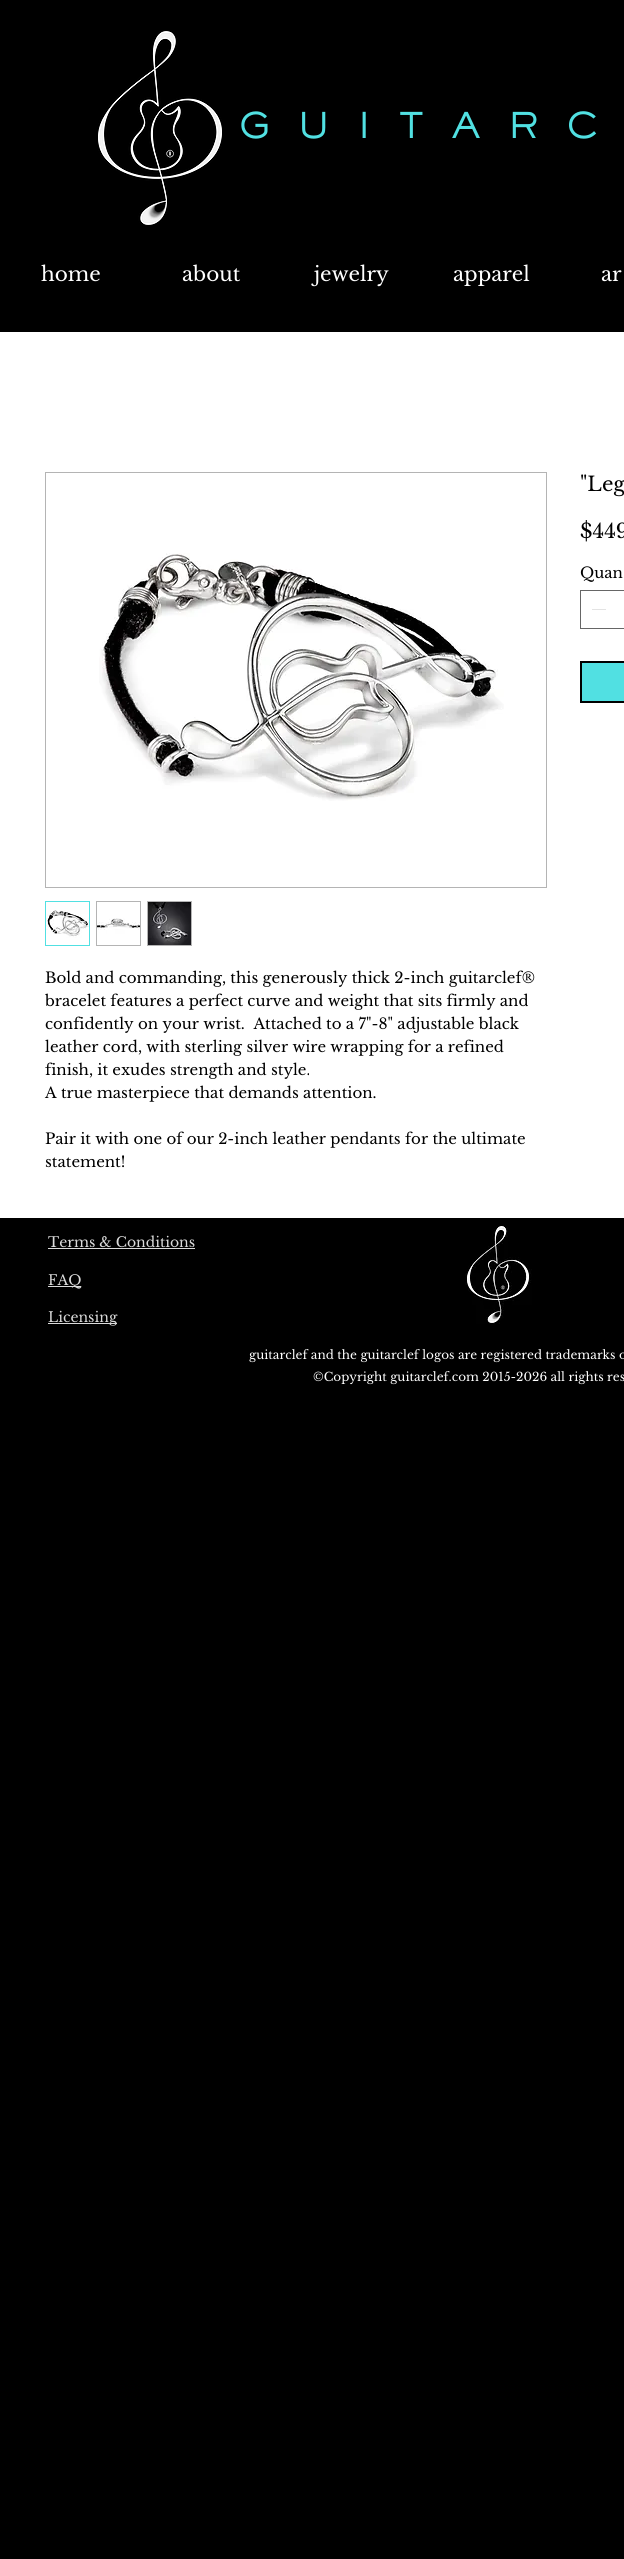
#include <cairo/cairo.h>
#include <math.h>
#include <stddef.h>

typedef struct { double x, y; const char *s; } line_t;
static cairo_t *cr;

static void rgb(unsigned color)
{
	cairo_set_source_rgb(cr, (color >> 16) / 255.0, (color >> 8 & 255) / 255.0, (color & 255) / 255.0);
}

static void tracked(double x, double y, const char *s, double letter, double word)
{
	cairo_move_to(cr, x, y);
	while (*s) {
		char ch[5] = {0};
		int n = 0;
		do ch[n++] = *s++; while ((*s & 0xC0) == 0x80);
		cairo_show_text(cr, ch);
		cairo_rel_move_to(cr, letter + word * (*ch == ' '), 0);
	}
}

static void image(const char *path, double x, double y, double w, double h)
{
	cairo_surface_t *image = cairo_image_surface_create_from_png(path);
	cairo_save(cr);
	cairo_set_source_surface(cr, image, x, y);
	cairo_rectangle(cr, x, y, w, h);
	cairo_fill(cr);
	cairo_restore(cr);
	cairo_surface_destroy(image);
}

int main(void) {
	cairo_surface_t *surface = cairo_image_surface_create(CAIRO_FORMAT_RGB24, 624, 2559);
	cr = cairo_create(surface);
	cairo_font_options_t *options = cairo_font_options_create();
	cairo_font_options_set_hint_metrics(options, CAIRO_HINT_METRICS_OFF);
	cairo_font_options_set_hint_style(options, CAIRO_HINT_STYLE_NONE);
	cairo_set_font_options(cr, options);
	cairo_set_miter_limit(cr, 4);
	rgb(0x000000);
	cairo_paint(cr);
	image("img/1.png", 98, 31, 124, 194);
	rgb(0xffffff);
	cairo_rectangle(cr, 0, 332, 624, 886);
	cairo_fill(cr);
	cairo_rectangle(cr, 580.5, 590.5, 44, 38);
	rgb(0x666666);
	cairo_set_line_width(cr, 1);
	cairo_stroke(cr);
	rgb(0xe3e3e3);
	cairo_rectangle(cr, 592, 609, 14, 1);
	cairo_fill(cr);
	rgb(0x51e0e2);
	cairo_rectangle(cr, 581, 662, 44, 40);
	cairo_fill_preserve(cr);
	rgb(0x000000);
	cairo_set_line_width(cr, 2);
	cairo_stroke(cr);
	cairo_rectangle(cr, 45.5, 472.5, 501, 415);
	rgb(0xb4b4b4);
	cairo_set_line_width(cr, 1);
	cairo_stroke(cr);
	image("img/2.png", 99, 553, 405, 248);
	cairo_rectangle(cr, 45.5, 901.5, 44, 44);
	rgb(0x51e0e2);
	cairo_stroke(cr);
	image("img/3.png", 46, 902, 43, 43);
	rgb(0xb4b4b4);
	cairo_rectangle(cr, 96, 901, 45, 45);
	cairo_fill(cr);
	image("img/4.png", 97, 902, 43, 43);
	cairo_rectangle(cr, 147, 901, 45, 45);
	cairo_fill(cr);
	image("img/5.png", 148, 902, 43, 43);
	rgb(0xdbdbdb);
	cairo_rectangle(cr, 48, 1248, 147, 1);
	cairo_fill(cr);
	image("img/6.png", 465, 1226, 67, 98);
	cairo_rectangle(cr, 48, 1286, 33, 1);
	cairo_fill(cr);
	cairo_rectangle(cr, 48, 1323, 69, 1);
	cairo_fill(cr);
	cairo_select_font_face(cr, "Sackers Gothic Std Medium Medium", CAIRO_FONT_SLANT_NORMAL, CAIRO_FONT_WEIGHT_NORMAL);
	cairo_set_font_size(cr, 35);
	rgb(0x51e0e2);
	tracked(238, 138, "G U I T A R C", 7, 0);
	cairo_select_font_face(cr, "Libre Baskerville", CAIRO_FONT_SLANT_NORMAL, CAIRO_FONT_WEIGHT_NORMAL);
	cairo_set_font_size(cr, 20);
	rgb(0xffffff);
	{
		static const line_t items[] = {
			{41, 281, "home"},
			{182, 281, "about"},
			{314, 281, "jewelry"},
			{453, 281, "apparel"},
			{601, 281, "ar"},
		};
		for (size_t i = 0; i < sizeof items / sizeof *items; i++) {
			cairo_move_to(cr, items[i].x, items[i].y);
			cairo_show_text(cr, items[i].s);
		}
	}
	rgb(0x000000);
	cairo_move_to(cr, 580, 491);
	cairo_show_text(cr, "\"Leg");
	cairo_move_to(cr, 580, 538);
	cairo_show_text(cr, "$449");
	cairo_set_font_size(cr, 15);
	{
		static const line_t items[] = {
			{580, 578, "Quan"},
			{45, 983, "Bold and commanding, this generously thick 2-inch guitarclef®"},
			{45, 1006, "bracelet features a perfect curve and weight that sits firmly and"},
			{45, 1029, "confidently on your wrist.  Attached to a 7\"-8\" adjustable black"},
			{45, 1052, "leather cord, with sterling silver wire wrapping for a refined"},
			{45, 1075, "finish, it exudes strength and style."},
			{45, 1098, "A true masterpiece that demands attention."},
			{45, 1144, "Pair it with one of our 2-inch leather pendants for the ultimate"},
			{45, 1167, "statement!"},
		};
		for (size_t i = 0; i < sizeof items / sizeof *items; i++) {
			cairo_move_to(cr, items[i].x, items[i].y);
			cairo_show_text(cr, items[i].s);
		}
	}
	cairo_set_font_size(cr, 14);
	rgb(0xdbdbdb);
	{
		static const line_t items[] = {
			{48, 1247, "Terms & Conditions"},
			{48, 1285, "FAQ"},
			{48, 1322, "Licensing"},
		};
		for (size_t i = 0; i < sizeof items / sizeof *items; i++) {
			cairo_move_to(cr, items[i].x, items[i].y);
			cairo_show_text(cr, items[i].s);
		}
	}
	cairo_set_font_size(cr, 12);
	rgb(0xffffff);
	cairo_move_to(cr, 249, 1359);
	cairo_show_text(cr, "guitarclef and the guitarclef logos are registered trademarks o");
	cairo_move_to(cr, 313, 1381);
	cairo_show_text(cr, "©Copyright guitarclef.com 2015-2026 all rights res");
	cairo_surface_write_to_png(surface, "page.png");
	cairo_font_options_destroy(options);
	cairo_destroy(cr);
	cairo_surface_destroy(surface);
	return 0;
}
